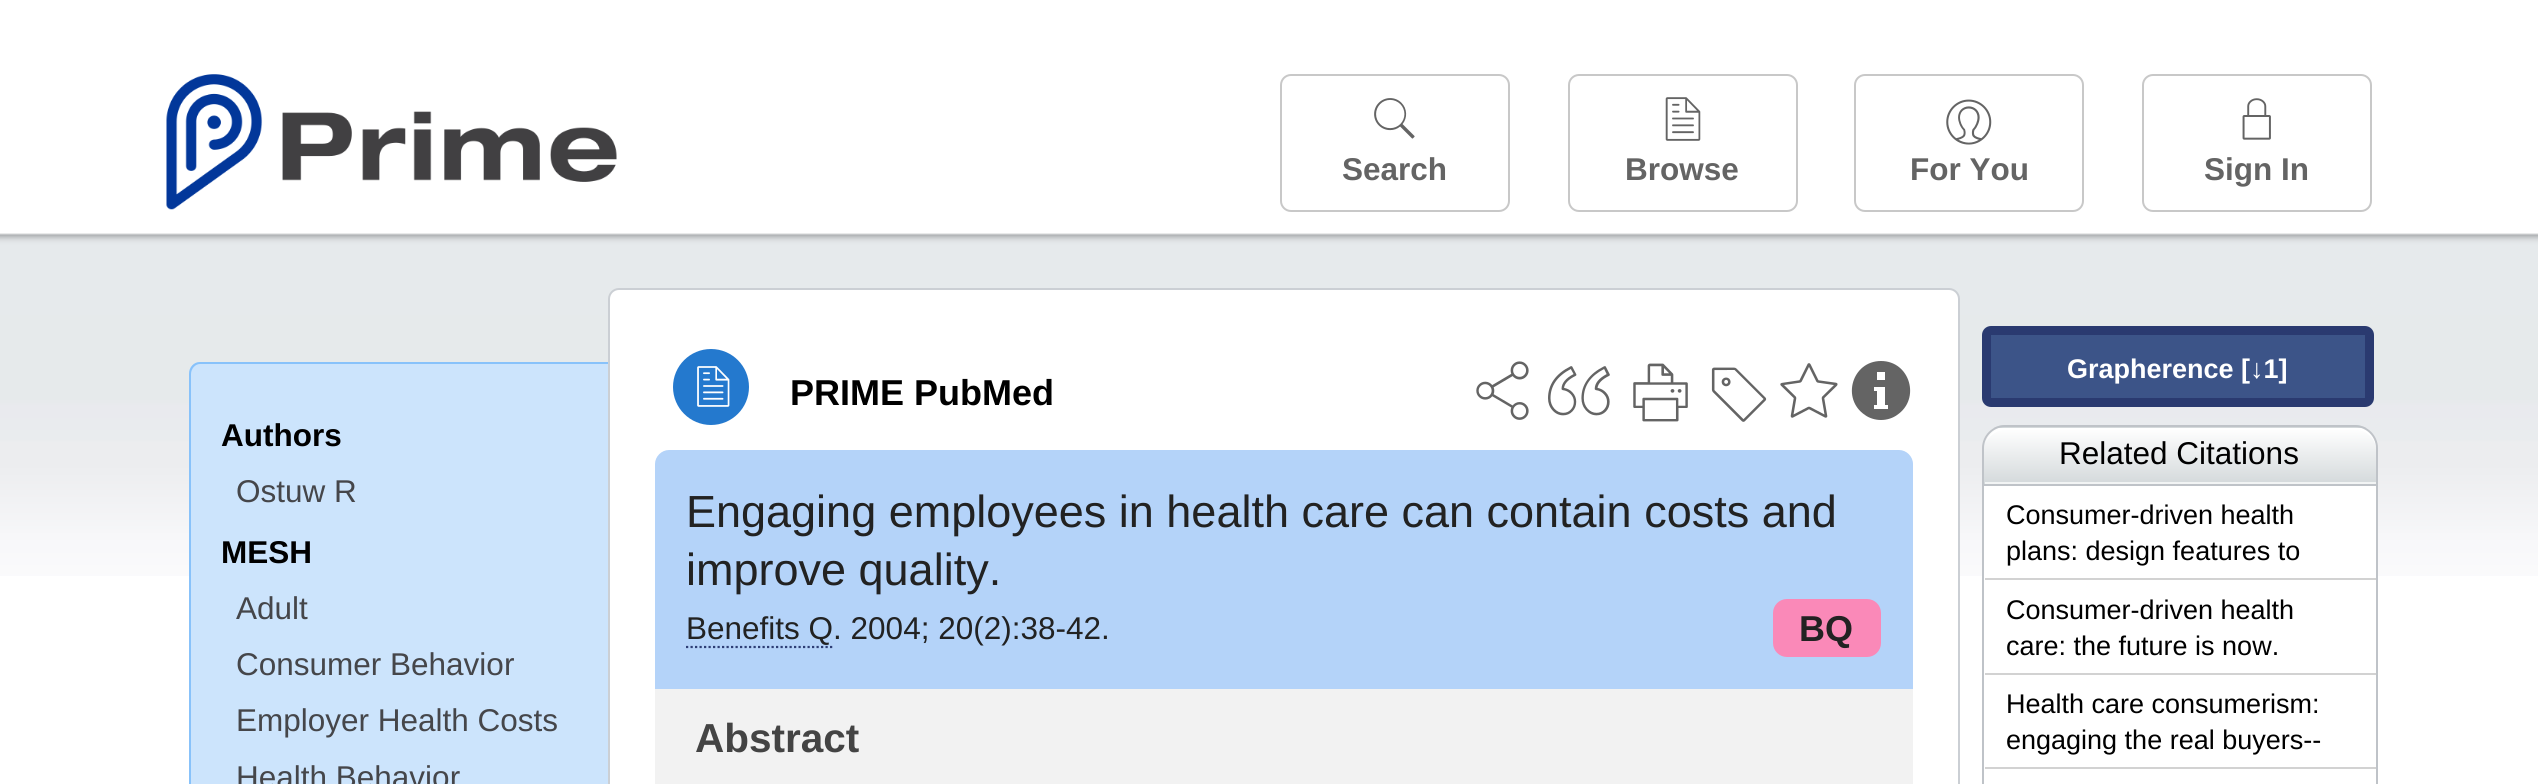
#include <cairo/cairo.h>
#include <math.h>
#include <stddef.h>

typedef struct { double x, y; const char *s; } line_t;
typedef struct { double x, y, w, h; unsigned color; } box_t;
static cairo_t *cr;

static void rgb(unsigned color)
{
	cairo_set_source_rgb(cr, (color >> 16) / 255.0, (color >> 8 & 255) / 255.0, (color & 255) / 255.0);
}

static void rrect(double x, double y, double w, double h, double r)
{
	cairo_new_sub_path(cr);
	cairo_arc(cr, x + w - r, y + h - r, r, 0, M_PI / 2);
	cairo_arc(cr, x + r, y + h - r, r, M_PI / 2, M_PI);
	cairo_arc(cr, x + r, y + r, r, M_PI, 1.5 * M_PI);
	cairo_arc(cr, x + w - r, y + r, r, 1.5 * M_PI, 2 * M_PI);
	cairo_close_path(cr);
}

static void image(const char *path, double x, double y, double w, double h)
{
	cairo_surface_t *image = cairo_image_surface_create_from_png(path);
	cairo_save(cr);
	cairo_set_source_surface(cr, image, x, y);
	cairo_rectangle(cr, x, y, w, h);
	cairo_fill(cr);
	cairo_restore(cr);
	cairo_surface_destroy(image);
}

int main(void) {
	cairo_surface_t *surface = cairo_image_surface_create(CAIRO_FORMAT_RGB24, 2538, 784);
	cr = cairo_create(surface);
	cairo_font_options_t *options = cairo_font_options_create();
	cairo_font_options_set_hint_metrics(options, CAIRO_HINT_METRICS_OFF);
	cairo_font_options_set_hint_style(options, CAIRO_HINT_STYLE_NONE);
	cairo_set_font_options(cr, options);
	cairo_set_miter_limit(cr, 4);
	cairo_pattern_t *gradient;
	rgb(0xffffff);
	cairo_paint(cr);
	image("img/1.png", 166, 74, 451, 136);
	rrect(1281, 75, 228, 136, 10);
	rgb(0xc8c8c8);
	cairo_stroke(cr);
	image("img/2.png", 1374, 98, 41, 41);
	rrect(1569, 75, 228, 136, 10);
	cairo_stroke(cr);
	image("img/3.png", 1665, 97, 36, 44);
	rrect(1855, 75, 228, 136, 10);
	cairo_stroke(cr);
	image("img/4.png", 1946, 99, 46, 46);
	rrect(2143, 75, 228, 136, 10);
	cairo_stroke(cr);
	image("img/5.png", 2242, 98, 29, 42);
	image("img/6.png", 0, 233, 2538, 343);
	rgb(0xcce4fc);
	cairo_new_path(cr);
	cairo_move_to(cr, 200, 362);
	cairo_line_to(cr, 608, 362);
	cairo_line_to(cr, 608, 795);
	cairo_line_to(cr, 189, 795);
	cairo_line_to(cr, 189, 373);
	cairo_curve_to(cr, 189, 367, 194, 362, 200, 362);
	cairo_close_path(cr);
	cairo_fill(cr);
	cairo_save(cr);
	cairo_rectangle(cr, 167, 288, 441, 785);
	cairo_clip(cr);
	rgb(0x88c2fa);
	cairo_set_fill_rule(cr, CAIRO_FILL_RULE_EVEN_ODD);
	cairo_new_path(cr);
	cairo_move_to(cr, 200, 362);
	cairo_line_to(cr, 655, 362);
	cairo_line_to(cr, 655, 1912);
	cairo_line_to(cr, 200, 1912);
	cairo_curve_to(cr, 194, 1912, 189, 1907, 189, 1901);
	cairo_line_to(cr, 189, 374);
	cairo_curve_to(cr, 189, 367, 194, 362, 200, 362);
	cairo_close_path(cr);
	cairo_move_to(cr, 200, 364);
	cairo_line_to(cr, 655, 364);
	cairo_line_to(cr, 655, 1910);
	cairo_line_to(cr, 200, 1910);
	cairo_curve_to(cr, 195, 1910, 191, 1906, 191, 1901);
	cairo_line_to(cr, 191, 374);
	cairo_curve_to(cr, 191, 369, 195, 364, 200, 364);
	cairo_close_path(cr);
	cairo_fill(cr);
	cairo_restore(cr);
	rgb(0xffffff);
	rrect(609, 289, 1350, 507, 10);
	cairo_fill_preserve(cr);
	rgb(0xcbcfd4);
	cairo_stroke(cr);
	rgb(0x2479ce);
	cairo_arc(cr, 711, 387, 38, 0, 2 * M_PI);
	cairo_fill(cr);
	image("img/7.png", 697, 366, 33, 41);
	image("img/8.png", 1476, 361, 53, 59);
	image("img/9.png", 1548, 366, 62, 50);
	image("img/10.png", 1633, 363, 55, 59);
	image("img/11.png", 1711, 367, 56, 55);
	image("img/12.png", 1780, 363, 58, 55);
	rgb(0x646464);
	cairo_new_path(cr);
	cairo_move_to(cr, 1881, 361);
	cairo_curve_to(cr, 1852, 361, 1841, 399, 1865, 415);
	cairo_curve_to(cr, 1869, 418, 1875, 420, 1881, 420);
	cairo_curve_to(cr, 1887, 420, 1893, 418, 1897, 415);
	cairo_curve_to(cr, 1921, 399, 1910, 361, 1881, 361);
	cairo_close_path(cr);
	cairo_move_to(cr, 1877, 372);
	cairo_line_to(cr, 1885, 372);
	cairo_line_to(cr, 1885, 380);
	cairo_line_to(cr, 1877, 380);
	cairo_close_path(cr);
	cairo_move_to(cr, 1888, 409);
	cairo_line_to(cr, 1874, 409);
	cairo_line_to(cr, 1874, 405);
	cairo_line_to(cr, 1877, 405);
	cairo_line_to(cr, 1877, 391);
	cairo_line_to(cr, 1874, 391);
	cairo_line_to(cr, 1874, 387);
	cairo_line_to(cr, 1885, 387);
	cairo_line_to(cr, 1885, 405);
	cairo_line_to(cr, 1888, 405);
	cairo_close_path(cr);
	cairo_fill(cr);
	rgb(0xb4d3f9);
	cairo_new_path(cr);
	cairo_move_to(cr, 669, 450);
	cairo_line_to(cr, 1899, 450);
	cairo_curve_to(cr, 1906.5, 450, 1913, 456.5, 1913, 464);
	cairo_line_to(cr, 1913, 689);
	cairo_line_to(cr, 655, 689);
	cairo_line_to(cr, 655, 464);
	cairo_curve_to(cr, 655, 456.5, 661.5, 450, 669, 450);
	cairo_close_path(cr);
	cairo_fill(cr);
	cairo_new_path(cr);
	cairo_move_to(cr, 686, 647);
	cairo_line_to(cr, 832.5, 647);
	rgb(0x2d3e75);
	cairo_set_line_width(cr, 2.2);
	cairo_set_dash(cr, (double[]){2.25, 2.25}, 2, 0);
	cairo_stroke(cr);
	rgb(0xfa89b8);
	rrect(1773, 599, 108, 58, 14);
	cairo_fill(cr);
	rgb(0xf2f2f2);
	cairo_rectangle(cr, 655, 689, 1258, 95);
	cairo_fill(cr);
	rgb(0x3c5488);
	rrect(1986.5, 330.5, 383, 72, 4.5);
	cairo_fill_preserve(cr);
	rgb(0x2a3a70);
	cairo_set_line_width(cr, 9);
	cairo_set_dash(cr, NULL, 0, 0);
	cairo_stroke(cr);
	rgb(0xffffff);
	cairo_rectangle(cr, 1984, 486, 392, 90);
	cairo_fill(cr);
	cairo_rectangle(cr, 1983, 474, 394, 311);
	rgb(0xbfc3c8);
	cairo_set_line_width(cr, 2);
	cairo_stroke(cr);
	cairo_save(cr);
	cairo_new_path(cr);
	cairo_move_to(cr, 2005, 425);
	cairo_line_to(cr, 2355, 425);
	cairo_curve_to(cr, 2367.5, 425, 2378, 435.5, 2378, 448);
	cairo_line_to(cr, 2378, 486);
	cairo_line_to(cr, 1982, 486);
	cairo_line_to(cr, 1982, 448);
	cairo_curve_to(cr, 1982, 435.5, 1992.5, 425, 2005, 425);
	cairo_close_path(cr);
	cairo_clip(cr);
	gradient = cairo_pattern_create_linear(2180, 371, 2180, 428);
	cairo_pattern_add_color_stop_rgba(gradient, 0, 1, 1, 1, 1);
	cairo_pattern_add_color_stop_rgba(gradient, 1, 0.831, 0.851, 0.859, 1);
	cairo_set_source(cr, gradient);
	cairo_pattern_destroy(gradient);
	cairo_rectangle(cr, 1993, 425, 374, 3);
	cairo_fill(cr);
	gradient = cairo_pattern_create_linear(2180, 428, 2180, 484);
	cairo_pattern_add_color_stop_rgba(gradient, 0, 1, 1, 1, 1);
	cairo_pattern_add_color_stop_rgba(gradient, 1, 0.831, 0.851, 0.859, 1);
	cairo_set_source(cr, gradient);
	cairo_pattern_destroy(gradient);
	cairo_rectangle(cr, 1982, 428, 396, 56);
	cairo_fill(cr);
	cairo_restore(cr);
	rgb(0xf2f4f4);
	cairo_rectangle(cr, 1985, 482, 391, 2);
	cairo_fill(cr);
	rgb(0xffffff);
	cairo_new_path(cr);
	cairo_move_to(cr, 2005, 430);
	cairo_line_to(cr, 2356, 430);
	cairo_curve_to(cr, 2367, 430, 2376, 439, 2376, 450);
	cairo_line_to(cr, 2376, 448);
	cairo_curve_to(cr, 2376, 437, 2367, 428, 2356, 428);
	cairo_line_to(cr, 2005, 428);
	cairo_curve_to(cr, 1996, 428, 1989, 434, 1986, 442);
	cairo_curve_to(cr, 1990, 435, 1997, 430, 2005, 430);
	cairo_close_path(cr);
	cairo_fill(cr);
	cairo_new_path(cr);
	cairo_move_to(cr, 2005, 426);
	cairo_line_to(cr, 2355, 426);
	cairo_curve_to(cr, 2367, 426, 2377, 436, 2377, 448);
	cairo_line_to(cr, 2377, 485);
	cairo_line_to(cr, 1983, 485);
	cairo_line_to(cr, 1983, 448);
	cairo_curve_to(cr, 1983, 436, 1993, 426, 2005, 426);
	cairo_close_path(cr);
	rgb(0xbfc3c8);
	cairo_stroke(cr);
	{
		static const box_t items[] = {
			{1985, 578, 391, 2, 0xd2d2d2},
			{1985, 673, 391, 2, 0xd2d2d2},
			{1985, 767, 391, 2, 0xd2d2d2},
		};
		for (size_t i = 0; i < sizeof items / sizeof *items; i++) {
			rgb(items[i].color);
			cairo_rectangle(cr, items[i].x, items[i].y, items[i].w, items[i].h);
			cairo_fill(cr);
		}
	}
	cairo_select_font_face(cr, "Liberation Sans", CAIRO_FONT_SLANT_NORMAL, CAIRO_FONT_WEIGHT_BOLD);
	cairo_set_font_size(cr, 31.5);
	rgb(0x646464);
	{
		static const line_t items[] = {
			{1342, 180, "Search"},
			{1625, 180, "Browse"},
			{1910, 180, "For You"},
			{2204, 180, "Sign In"},
		};
		for (size_t i = 0; i < sizeof items / sizeof *items; i++) {
			cairo_move_to(cr, items[i].x, items[i].y);
			cairo_show_text(cr, items[i].s);
		}
	}
	rgb(0x000000);
	cairo_move_to(cr, 221, 446);
	cairo_show_text(cr, "Authors");
	cairo_select_font_face(cr, "Liberation Sans", CAIRO_FONT_SLANT_NORMAL, CAIRO_FONT_WEIGHT_NORMAL);
	rgb(0x45464a);
	cairo_move_to(cr, 236, 502);
	cairo_show_text(cr, "Ostuw R");
	cairo_select_font_face(cr, "Liberation Sans", CAIRO_FONT_SLANT_NORMAL, CAIRO_FONT_WEIGHT_BOLD);
	rgb(0x000000);
	cairo_move_to(cr, 221, 563);
	cairo_show_text(cr, "MESH");
	cairo_select_font_face(cr, "Liberation Sans", CAIRO_FONT_SLANT_NORMAL, CAIRO_FONT_WEIGHT_NORMAL);
	rgb(0x45464a);
	{
		static const line_t items[] = {
			{236, 619, "Adult"},
			{236, 675, "Consumer Behavior"},
			{236, 731, "Employer Health Costs"},
			{236, 788, "Health Behavior"},
		};
		for (size_t i = 0; i < sizeof items / sizeof *items; i++) {
			cairo_move_to(cr, items[i].x, items[i].y);
			cairo_show_text(cr, items[i].s);
		}
	}
	cairo_select_font_face(cr, "Liberation Sans", CAIRO_FONT_SLANT_NORMAL, CAIRO_FONT_WEIGHT_BOLD);
	cairo_set_font_size(cr, 36);
	rgb(0x000000);
	cairo_move_to(cr, 790, 405);
	cairo_show_text(cr, "PRIME PubMed");
	cairo_select_font_face(cr, "Liberation Sans", CAIRO_FONT_SLANT_NORMAL, CAIRO_FONT_WEIGHT_NORMAL);
	cairo_set_font_size(cr, 45);
	rgb(0x222222);
	cairo_move_to(cr, 686, 527);
	cairo_show_text(cr, "Engaging employees in health care can contain costs and");
	cairo_move_to(cr, 686, 585);
	cairo_show_text(cr, "improve quality.");
	cairo_set_font_size(cr, 31.5);
	cairo_move_to(cr, 686, 639);
	cairo_show_text(cr, "Benefits Q. 2004; 20(2):38-42.");
	cairo_select_font_face(cr, "Liberation Sans", CAIRO_FONT_SLANT_NORMAL, CAIRO_FONT_WEIGHT_BOLD);
	cairo_set_font_size(cr, 36);
	cairo_move_to(cr, 1799, 641);
	cairo_show_text(cr, "BQ");
	cairo_set_font_size(cr, 40.5);
	rgb(0x444444);
	cairo_move_to(cr, 695, 752);
	cairo_show_text(cr, "Abstract");
	cairo_set_font_size(cr, 27);
	rgb(0xffffff);
	cairo_move_to(cr, 2067, 378);
	cairo_show_text(cr, "Grapherence [↓1]");
	cairo_select_font_face(cr, "Liberation Sans", CAIRO_FONT_SLANT_NORMAL, CAIRO_FONT_WEIGHT_NORMAL);
	cairo_set_font_size(cr, 31.5);
	rgb(0x000000);
	cairo_move_to(cr, 2059, 464);
	cairo_show_text(cr, "Related Citations");
	cairo_set_font_size(cr, 27);
	{
		static const line_t items[] = {
			{2006, 524, "Consumer-driven health"},
			{2006, 560, "plans: design features to"},
			{2006, 619, "Consumer-driven health"},
			{2006, 655, "care: the future is now."},
			{2006, 713, "Health care consumerism:"},
			{2006, 749, "engaging the real buyers--"},
		};
		for (size_t i = 0; i < sizeof items / sizeof *items; i++) {
			cairo_move_to(cr, items[i].x, items[i].y);
			cairo_show_text(cr, items[i].s);
		}
	}
	cairo_surface_write_to_png(surface, "page.png");
	cairo_font_options_destroy(options);
	cairo_destroy(cr);
	cairo_surface_destroy(surface);
	return 0;
}
